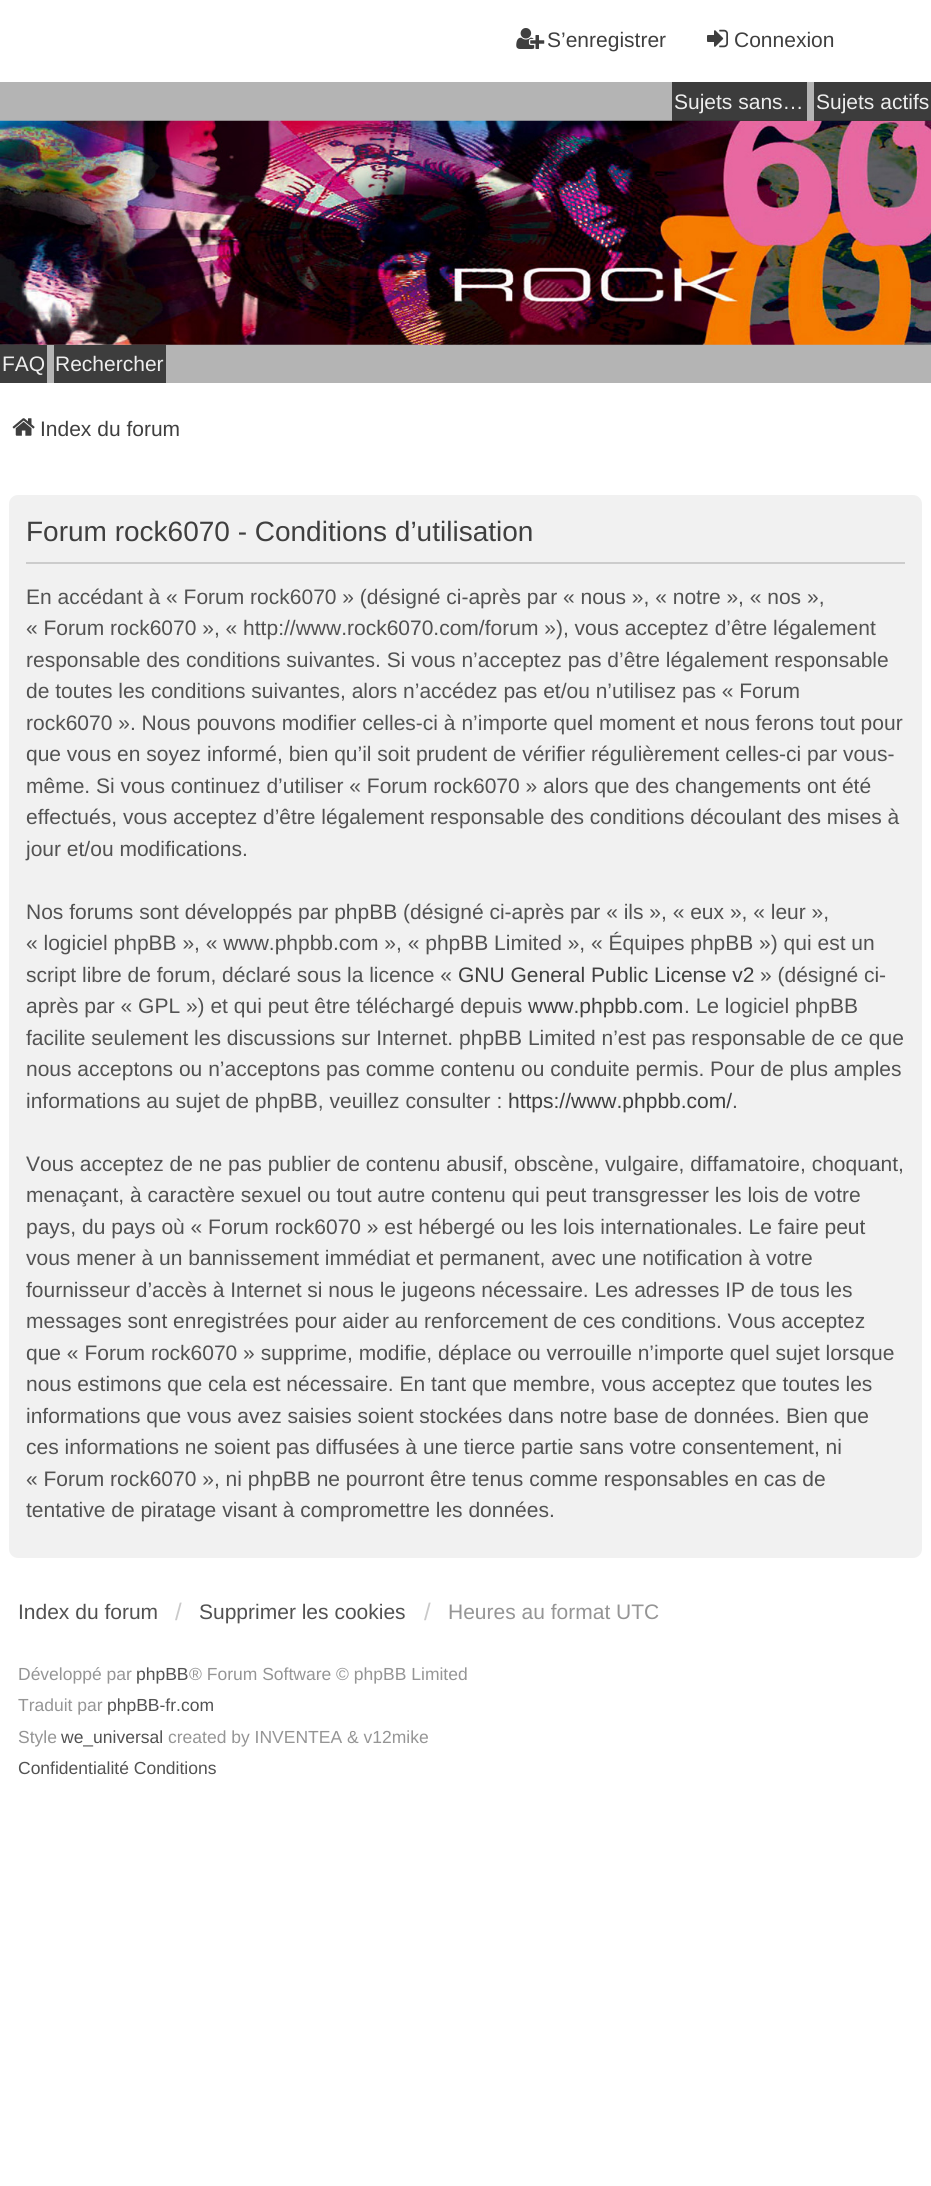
#include <cairo/cairo.h>
#include <math.h>
#include <stddef.h>

typedef struct { double x, y; const char *s; } line_t;
static cairo_t *cr;

static void rgb(unsigned color)
{
	cairo_set_source_rgb(cr, (color >> 16) / 255.0, (color >> 8 & 255) / 255.0, (color & 255) / 255.0);
}

static void rrect(double x, double y, double w, double h, double r)
{
	cairo_new_sub_path(cr);
	cairo_arc(cr, x + w - r, y + h - r, r, 0, M_PI / 2);
	cairo_arc(cr, x + r, y + h - r, r, M_PI / 2, M_PI);
	cairo_arc(cr, x + r, y + r, r, M_PI, 1.5 * M_PI);
	cairo_arc(cr, x + w - r, y + r, r, 1.5 * M_PI, 2 * M_PI);
	cairo_close_path(cr);
}

static void image(const char *path, double x, double y, double w, double h)
{
	cairo_surface_t *image = cairo_image_surface_create_from_png(path);
	cairo_save(cr);
	cairo_set_source_surface(cr, image, x, y);
	cairo_rectangle(cr, x, y, w, h);
	cairo_fill(cr);
	cairo_restore(cr);
	cairo_surface_destroy(image);
}

int main(void) {
	cairo_surface_t *surface = cairo_image_surface_create(CAIRO_FORMAT_RGB24, 931, 2186);
	cr = cairo_create(surface);
	cairo_font_options_t *options = cairo_font_options_create();
	cairo_font_options_set_hint_metrics(options, CAIRO_HINT_METRICS_OFF);
	cairo_font_options_set_hint_style(options, CAIRO_HINT_STYLE_NONE);
	cairo_set_font_options(cr, options);
	cairo_set_miter_limit(cr, 4);
	rgb(0xffffff);
	cairo_paint(cr);
	image("img/1.png", 516, 28, 29, 21);
	image("img/2.png", 707, 29, 21, 19);
	rgb(0xb4b4b4);
	cairo_rectangle(cr, 0, 82, 931, 301);
	cairo_fill(cr);
	image("img/3.png", 0, 120, 931, 225);
	cairo_set_source_rgba(cr, 0.039, 0.039, 0.039, 0.7);
	cairo_rectangle(cr, 672, 82, 135, 39);
	cairo_fill(cr);
	cairo_rectangle(cr, 814, 82, 117, 39);
	cairo_fill(cr);
	rgb(0x3d3d3d);
	cairo_rectangle(cr, 0, 345, 47, 38);
	cairo_fill(cr);
	cairo_rectangle(cr, 54, 345, 112, 38);
	cairo_fill(cr);
	image("img/4.png", 12, 418, 23, 18);
	rgb(0xf1f1f1);
	rrect(9, 495, 913, 1063, 9);
	cairo_fill(cr);
	rgb(0xcccccc);
	cairo_rectangle(cr, 26, 562, 879, 2);
	cairo_fill(cr);
	cairo_select_font_face(cr, "Liberation Sans", CAIRO_FONT_SLANT_NORMAL, CAIRO_FONT_WEIGHT_NORMAL);
	cairo_set_font_size(cr, 21);
	rgb(0x3f3f3f);
	cairo_move_to(cr, 547, 47);
	cairo_show_text(cr, "S’enregistrer");
	cairo_move_to(cr, 734, 47);
	cairo_show_text(cr, "Connexion");
	rgb(0xeeeeee);
	{
		static const line_t items[] = {
			{674, 109, "Sujets sans…"},
			{816, 109, "Sujets actifs"},
			{2, 371, "FAQ"},
			{55, 371, "Rechercher"},
		};
		for (size_t i = 0; i < sizeof items / sizeof *items; i++) {
			cairo_move_to(cr, items[i].x, items[i].y);
			cairo_show_text(cr, items[i].s);
		}
	}
	rgb(0x3f3f3f);
	cairo_move_to(cr, 40, 436);
	cairo_show_text(cr, "Index du forum");
	cairo_set_font_size(cr, 28);
	cairo_move_to(cr, 26, 541);
	cairo_show_text(cr, "Forum rock6070 - Conditions d’utilisation");
	cairo_set_font_size(cr, 21);
	rgb(0x525252);
	{
		static const line_t items[] = {
			{26, 604, "En accédant à « Forum rock6070 » (désigné ci-après par « nous », « notre », « nos »,"},
			{26, 635, "« Forum rock6070 », « http://www.rock6070.com/forum »), vous acceptez d’être légalement"},
			{26, 667, "responsable des conditions suivantes. Si vous n’acceptez pas d’être légalement responsable"},
			{26, 698, "de toutes les conditions suivantes, alors n’accédez pas et/ou n’utilisez pas « Forum"},
			{26, 730, "rock6070 ». Nous pouvons modifier celles-ci à n’importe quel moment et nous ferons tout pour"},
			{26, 761, "que vous en soyez informé, bien qu’il soit prudent de vérifier régulièrement celles-ci par vous-"},
			{26, 793, "même. Si vous continuez d’utiliser « Forum rock6070 » alors que des changements ont été"},
			{26, 824, "effectués, vous acceptez d’être légalement responsable des conditions découlant des mises à"},
			{26, 856, "jour et/ou modifications."},
			{26, 919, "Nos forums sont développés par phpBB (désigné ci-après par « ils », « eux », « leur »,"},
			{26, 950, "« logiciel phpBB », « www.phpbb.com », « phpBB Limited », « Équipes phpBB ») qui est un"},
			{26, 982, "script libre de forum, déclaré sous la licence «"},
		};
		for (size_t i = 0; i < sizeof items / sizeof *items; i++) {
			cairo_move_to(cr, items[i].x, items[i].y);
			cairo_show_text(cr, items[i].s);
		}
	}
	rgb(0x3f3f3f);
	cairo_move_to(cr, 458, 982);
	cairo_show_text(cr, "GNU General Public License v2");
	rgb(0x525252);
	cairo_move_to(cr, 760, 982);
	cairo_show_text(cr, "» (désigné ci-");
	cairo_move_to(cr, 26, 1013);
	cairo_show_text(cr, "après par « GPL ») et qui peut être téléchargé depuis");
	rgb(0x3f3f3f);
	cairo_move_to(cr, 528, 1013);
	cairo_show_text(cr, "www.phpbb.com");
	rgb(0x525252);
	{
		static const line_t items[] = {
			{684, 1013, ". Le logiciel phpBB"},
			{26, 1045, "facilite seulement les discussions sur Internet. phpBB Limited n’est pas responsable de ce que"},
			{26, 1076, "nous acceptons ou n’acceptons pas comme contenu ou conduite permis. Pour de plus amples"},
			{26, 1108, "informations au sujet de phpBB, veuillez consulter :"},
		};
		for (size_t i = 0; i < sizeof items / sizeof *items; i++) {
			cairo_move_to(cr, items[i].x, items[i].y);
			cairo_show_text(cr, items[i].s);
		}
	}
	rgb(0x3f3f3f);
	cairo_move_to(cr, 508, 1108);
	cairo_show_text(cr, "https://www.phpbb.com/");
	rgb(0x525252);
	{
		static const line_t items[] = {
			{732, 1108, "."},
			{26, 1171, "Vous acceptez de ne pas publier de contenu abusif, obscène, vulgaire, diffamatoire, choquant,"},
			{26, 1202, "menaçant, à caractère sexuel ou tout autre contenu qui peut transgresser les lois de votre"},
			{26, 1234, "pays, du pays où « Forum rock6070 » est hébergé ou les lois internationales. Le faire peut"},
			{26, 1265, "vous mener à un bannissement immédiat et permanent, avec une notification à votre"},
			{26, 1297, "fournisseur d’accès à Internet si nous le jugeons nécessaire. Les adresses IP de tous les"},
			{26, 1328, "messages sont enregistrées pour aider au renforcement de ces conditions. Vous acceptez"},
			{26, 1360, "que « Forum rock6070 » supprime, modifie, déplace ou verrouille n’importe quel sujet lorsque"},
			{26, 1391, "nous estimons que cela est nécessaire. En tant que membre, vous acceptez que toutes les"},
			{26, 1423, "informations que vous avez saisies soient stockées dans notre base de données. Bien que"},
			{26, 1454, "ces informations ne soient pas diffusées à une tierce partie sans votre consentement, ni"},
			{26, 1486, "« Forum rock6070 », ni phpBB ne pourront être tenus comme responsables en cas de"},
			{26, 1517, "tentative de piratage visant à compromettre les données."},
			{18, 1619, "Index du forum"},
		};
		for (size_t i = 0; i < sizeof items / sizeof *items; i++) {
			cairo_move_to(cr, items[i].x, items[i].y);
			cairo_show_text(cr, items[i].s);
		}
	}
	cairo_set_font_size(cr, 24);
	rgb(0xcacaca);
	cairo_move_to(cr, 175, 1620);
	cairo_show_text(cr, "/");
	cairo_set_font_size(cr, 21);
	rgb(0x525252);
	cairo_move_to(cr, 199, 1619);
	cairo_show_text(cr, "Supprimer les cookies");
	cairo_set_font_size(cr, 24);
	rgb(0xcacaca);
	cairo_move_to(cr, 424, 1620);
	cairo_show_text(cr, "/");
	cairo_set_font_size(cr, 21);
	rgb(0x959595);
	cairo_move_to(cr, 448, 1619);
	cairo_show_text(cr, "Heures au format UTC");
	cairo_set_font_size(cr, 17.5);
	cairo_move_to(cr, 18, 1680);
	cairo_show_text(cr, "Développé par");
	rgb(0x525252);
	cairo_move_to(cr, 136, 1680);
	cairo_show_text(cr, "phpBB");
	rgb(0x959595);
	cairo_move_to(cr, 189, 1680);
	cairo_show_text(cr, "® Forum Software © phpBB Limited");
	cairo_move_to(cr, 18, 1711);
	cairo_show_text(cr, "Traduit par");
	rgb(0x525252);
	cairo_move_to(cr, 107, 1711);
	cairo_show_text(cr, "phpBB-fr.com");
	rgb(0x959595);
	cairo_move_to(cr, 18, 1743);
	cairo_show_text(cr, "Style");
	rgb(0x525252);
	cairo_move_to(cr, 61, 1743);
	cairo_show_text(cr, "we_universal");
	rgb(0x959595);
	cairo_move_to(cr, 168, 1743);
	cairo_show_text(cr, "created by INVENTEA & v12mike");
	rgb(0x525252);
	cairo_move_to(cr, 18, 1774);
	cairo_show_text(cr, "Confidentialité Conditions");
	cairo_surface_write_to_png(surface, "page.png");
	cairo_font_options_destroy(options);
	cairo_destroy(cr);
	cairo_surface_destroy(surface);
	return 0;
}
